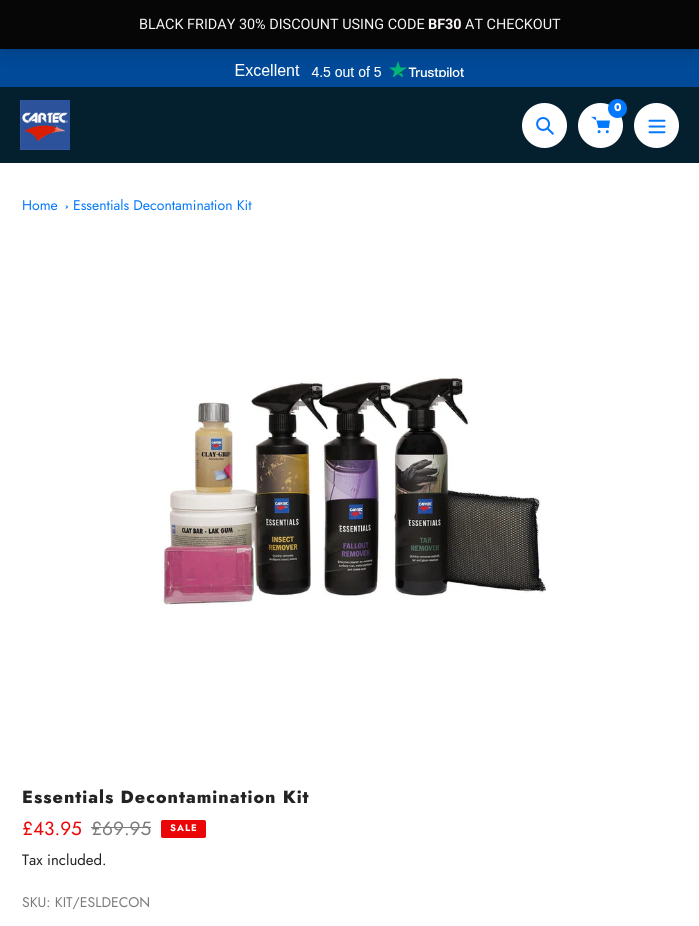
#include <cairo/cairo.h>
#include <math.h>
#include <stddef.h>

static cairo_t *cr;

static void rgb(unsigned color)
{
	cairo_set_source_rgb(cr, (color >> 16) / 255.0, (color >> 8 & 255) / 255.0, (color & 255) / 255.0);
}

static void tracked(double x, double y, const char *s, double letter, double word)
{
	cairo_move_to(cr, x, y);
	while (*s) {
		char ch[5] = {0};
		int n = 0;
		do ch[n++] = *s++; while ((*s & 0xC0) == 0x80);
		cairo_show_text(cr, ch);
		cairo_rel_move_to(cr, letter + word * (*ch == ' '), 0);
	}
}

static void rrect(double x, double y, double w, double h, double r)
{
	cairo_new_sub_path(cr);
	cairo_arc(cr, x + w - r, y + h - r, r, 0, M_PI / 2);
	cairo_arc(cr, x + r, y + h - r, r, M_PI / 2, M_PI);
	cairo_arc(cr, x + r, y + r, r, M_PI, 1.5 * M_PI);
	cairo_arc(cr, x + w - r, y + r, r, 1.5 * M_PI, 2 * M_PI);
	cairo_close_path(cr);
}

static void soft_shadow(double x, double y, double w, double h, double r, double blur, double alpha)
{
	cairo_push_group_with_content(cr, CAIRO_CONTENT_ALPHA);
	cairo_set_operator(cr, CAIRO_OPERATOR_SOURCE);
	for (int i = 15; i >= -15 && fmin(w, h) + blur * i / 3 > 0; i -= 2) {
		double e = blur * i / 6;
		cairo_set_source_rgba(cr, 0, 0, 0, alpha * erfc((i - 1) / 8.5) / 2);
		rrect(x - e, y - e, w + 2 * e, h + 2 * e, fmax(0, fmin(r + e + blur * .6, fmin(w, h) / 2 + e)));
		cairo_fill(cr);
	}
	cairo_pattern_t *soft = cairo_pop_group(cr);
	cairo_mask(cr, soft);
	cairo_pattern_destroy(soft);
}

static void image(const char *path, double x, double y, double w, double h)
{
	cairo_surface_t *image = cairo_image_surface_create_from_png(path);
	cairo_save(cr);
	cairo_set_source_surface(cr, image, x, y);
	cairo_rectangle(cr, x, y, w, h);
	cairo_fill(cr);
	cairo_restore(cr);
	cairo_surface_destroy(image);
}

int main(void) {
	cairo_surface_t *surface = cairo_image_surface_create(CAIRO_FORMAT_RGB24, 699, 926);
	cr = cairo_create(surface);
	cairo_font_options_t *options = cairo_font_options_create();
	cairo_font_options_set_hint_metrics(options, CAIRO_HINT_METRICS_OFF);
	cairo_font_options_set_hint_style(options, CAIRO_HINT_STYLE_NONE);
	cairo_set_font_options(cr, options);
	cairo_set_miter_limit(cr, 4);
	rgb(0xffffff);
	cairo_paint(cr);
	rgb(0x004a99);
	cairo_rectangle(cr, 0, 49, 699, 38);
	cairo_fill(cr);
	rgb(0x000000);
	soft_shadow(2, 6, 695, 45, 0, 3, 0.05);
	image("img/1.png", 235, 61, 229, 16);
	soft_shadow(3, 13, 693, 43, 0, 7.5, 0.1);
	rgb(0x060606);
	cairo_rectangle(cr, 0, 0, 699, 49);
	cairo_fill(cr);
	rgb(0x04202e);
	cairo_rectangle(cr, 0, 87, 699, 76);
	cairo_fill(cr);
	image("img/2.png", 20, 100, 50, 50);
	rgb(0xffffff);
	cairo_arc(cr, 544.5, 125.5, 22.5, 0, 2 * M_PI);
	cairo_fill(cr);
	image("img/3.png", 536, 117, 18, 18);
	cairo_arc(cr, 600.5, 125.5, 22.5, 0, 2 * M_PI);
	cairo_fill(cr);
	image("img/4.png", 591, 116, 19, 18);
	rgb(0x0378fc);
	cairo_arc(cr, 617.5, 108.5, 9.5, 0, 2 * M_PI);
	cairo_fill(cr);
	rgb(0xffffff);
	cairo_arc(cr, 656.5, 125.5, 22.5, 0, 2 * M_PI);
	cairo_fill(cr);
	image("img/5.png", 648, 119, 18, 15);
	rgb(0x0378fc);
	cairo_new_path(cr);
	cairo_move_to(cr, 66, 205);
	cairo_line_to(cr, 68, 207);
	cairo_line_to(cr, 67.5, 207.5);
	cairo_line_to(cr, 65.5, 205.5);
	cairo_close_path(cr);
	cairo_fill(cr);
	cairo_new_path(cr);
	cairo_move_to(cr, 67.5, 206);
	cairo_line_to(cr, 68, 207);
	cairo_line_to(cr, 66, 209);
	cairo_line_to(cr, 65.5, 208);
	cairo_close_path(cr);
	cairo_fill(cr);
	image("img/6.png", 162, 377, 385, 228);
	rgb(0x7b7b7b);
	cairo_rectangle(cr, 91, 827, 60, 1);
	cairo_fill(cr);
	rgb(0xea0606);
	rrect(161.5, 820.5, 44, 17, 1.5);
	cairo_fill_preserve(cr);
	cairo_set_line_width(cr, 1);
	cairo_stroke(cr);
	cairo_select_font_face(cr, "Roboto", CAIRO_FONT_SLANT_NORMAL, CAIRO_FONT_WEIGHT_NORMAL);
	cairo_set_font_size(cr, 14.4);
	rgb(0xf8f4f4);
	cairo_move_to(cr, 139, 29);
	cairo_show_text(cr, "BLACK FRIDAY 30% DISCOUNT USING CODE");
	cairo_select_font_face(cr, "Roboto", CAIRO_FONT_SLANT_NORMAL, CAIRO_FONT_WEIGHT_BOLD);
	cairo_move_to(cr, 428, 29);
	cairo_show_text(cr, "BF30");
	cairo_select_font_face(cr, "Roboto", CAIRO_FONT_SLANT_NORMAL, CAIRO_FONT_WEIGHT_NORMAL);
	cairo_move_to(cr, 465, 29);
	cairo_show_text(cr, "AT CHECKOUT");
	cairo_select_font_face(cr, "Jost ExtraBold", CAIRO_FONT_SLANT_NORMAL, CAIRO_FONT_WEIGHT_NORMAL);
	cairo_set_font_size(cr, 11);
	rgb(0xffffff);
	cairo_move_to(cr, 614, 111);
	cairo_show_text(cr, "0");
	cairo_select_font_face(cr, "Jost", CAIRO_FONT_SLANT_NORMAL, CAIRO_FONT_WEIGHT_NORMAL);
	cairo_set_font_size(cr, 14);
	rgb(0x0378fc);
	cairo_move_to(cr, 22, 210);
	cairo_show_text(cr, "Home");
	cairo_move_to(cr, 73, 210);
	cairo_show_text(cr, "Essentials Decontamination Kit");
	cairo_select_font_face(cr, "Jost ExtraBold", CAIRO_FONT_SLANT_NORMAL, CAIRO_FONT_WEIGHT_NORMAL);
	cairo_set_font_size(cr, 17.6);
	rgb(0x232323);
	tracked(22, 803, "Essentials Decontamination Kit", 1, 0);
	cairo_select_font_face(cr, "Jost", CAIRO_FONT_SLANT_NORMAL, CAIRO_FONT_WEIGHT_NORMAL);
	cairo_set_font_size(cr, 19);
	rgb(0xea0606);
	cairo_move_to(cr, 22, 835);
	cairo_show_text(cr, "£43.95");
	rgb(0x7b7b7b);
	cairo_move_to(cr, 91, 835);
	cairo_show_text(cr, "£69.95");
	cairo_select_font_face(cr, "Jost", CAIRO_FONT_SLANT_NORMAL, CAIRO_FONT_WEIGHT_BOLD);
	cairo_set_font_size(cr, 9.5);
	rgb(0xffffff);
	tracked(170, 831, "SALE", 1, 0);
	cairo_select_font_face(cr, "Jost", CAIRO_FONT_SLANT_NORMAL, CAIRO_FONT_WEIGHT_NORMAL);
	cairo_set_font_size(cr, 15);
	rgb(0x232323);
	cairo_move_to(cr, 22, 865);
	cairo_show_text(cr, "Tax included.");
	cairo_set_font_size(cr, 14);
	rgb(0x7b7b7b);
	cairo_move_to(cr, 22, 907);
	cairo_show_text(cr, "SKU: KIT/ESLDECON");
	cairo_surface_write_to_png(surface, "page.png");
	cairo_font_options_destroy(options);
	cairo_destroy(cr);
	cairo_surface_destroy(surface);
	return 0;
}
